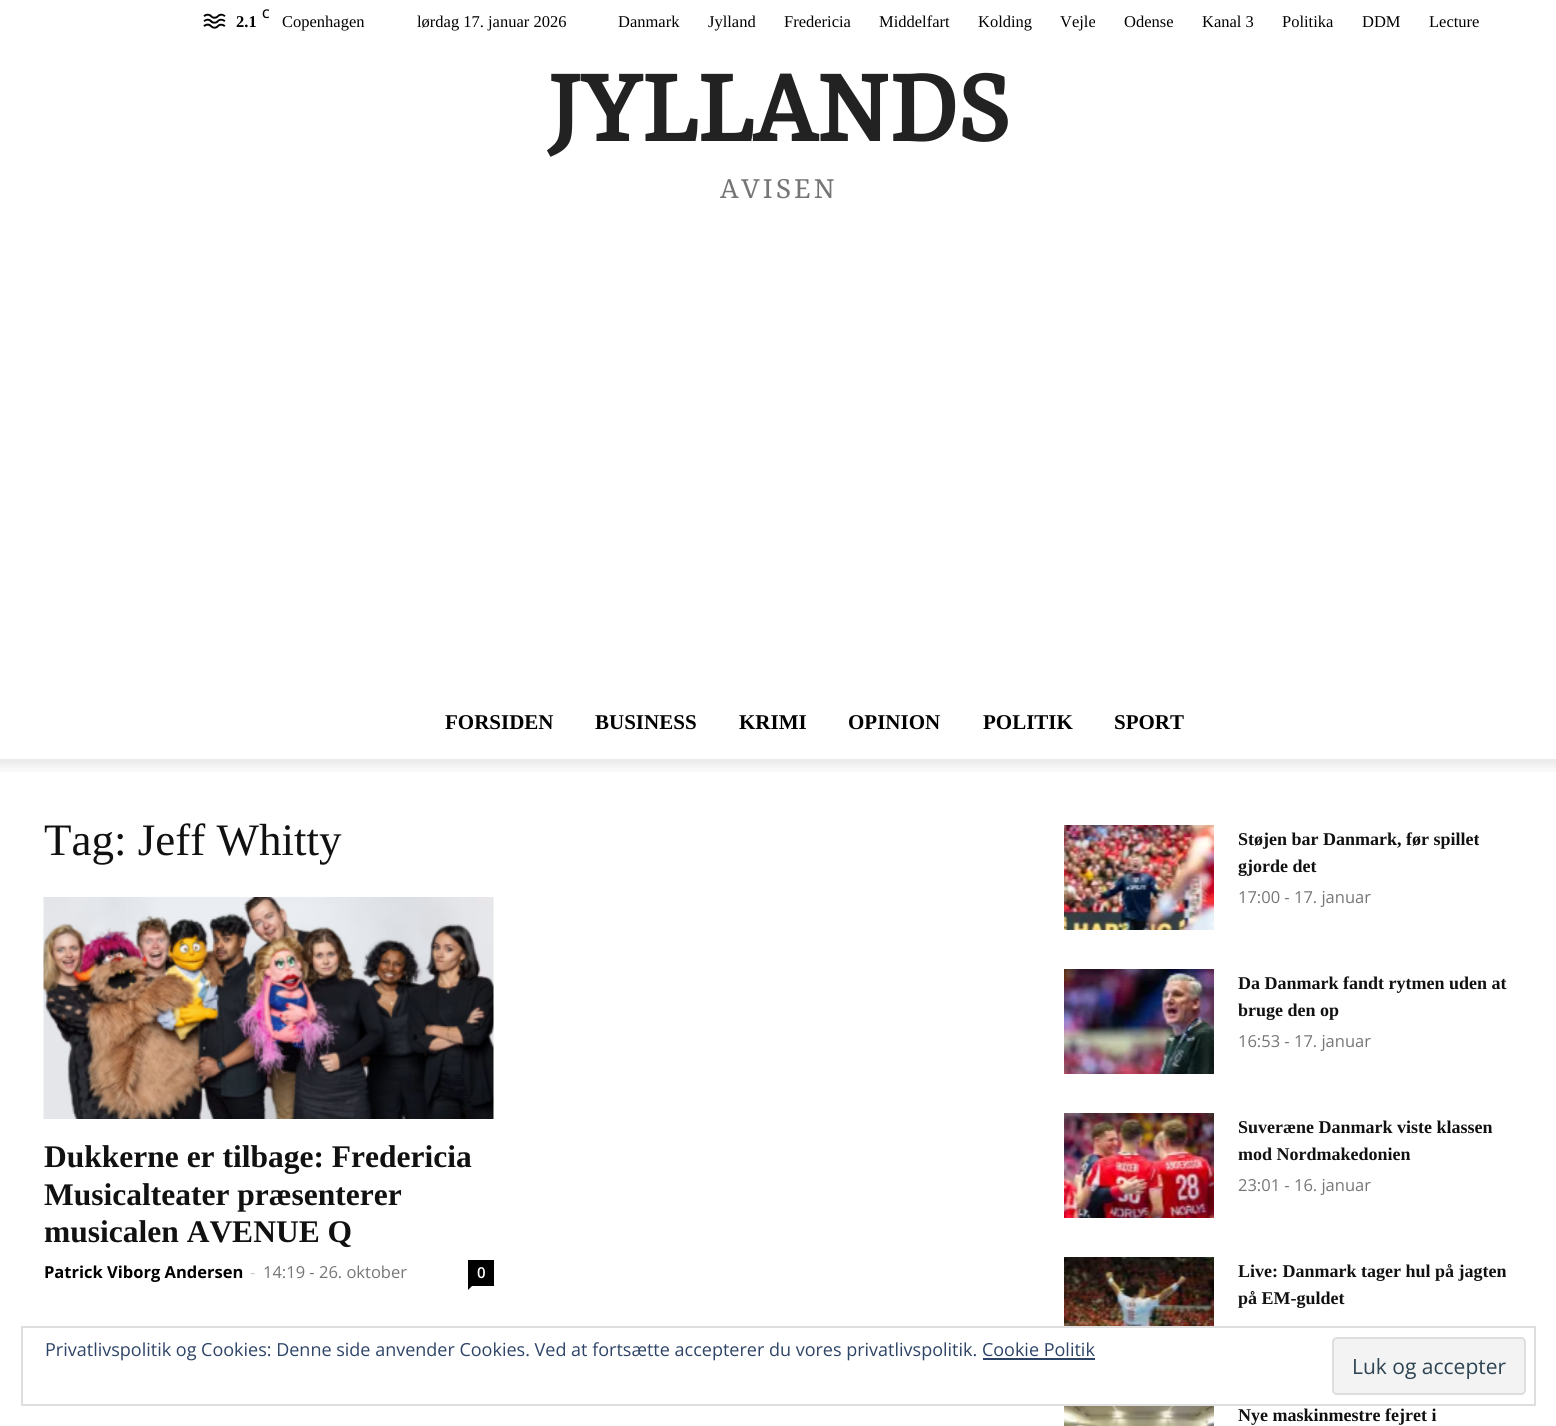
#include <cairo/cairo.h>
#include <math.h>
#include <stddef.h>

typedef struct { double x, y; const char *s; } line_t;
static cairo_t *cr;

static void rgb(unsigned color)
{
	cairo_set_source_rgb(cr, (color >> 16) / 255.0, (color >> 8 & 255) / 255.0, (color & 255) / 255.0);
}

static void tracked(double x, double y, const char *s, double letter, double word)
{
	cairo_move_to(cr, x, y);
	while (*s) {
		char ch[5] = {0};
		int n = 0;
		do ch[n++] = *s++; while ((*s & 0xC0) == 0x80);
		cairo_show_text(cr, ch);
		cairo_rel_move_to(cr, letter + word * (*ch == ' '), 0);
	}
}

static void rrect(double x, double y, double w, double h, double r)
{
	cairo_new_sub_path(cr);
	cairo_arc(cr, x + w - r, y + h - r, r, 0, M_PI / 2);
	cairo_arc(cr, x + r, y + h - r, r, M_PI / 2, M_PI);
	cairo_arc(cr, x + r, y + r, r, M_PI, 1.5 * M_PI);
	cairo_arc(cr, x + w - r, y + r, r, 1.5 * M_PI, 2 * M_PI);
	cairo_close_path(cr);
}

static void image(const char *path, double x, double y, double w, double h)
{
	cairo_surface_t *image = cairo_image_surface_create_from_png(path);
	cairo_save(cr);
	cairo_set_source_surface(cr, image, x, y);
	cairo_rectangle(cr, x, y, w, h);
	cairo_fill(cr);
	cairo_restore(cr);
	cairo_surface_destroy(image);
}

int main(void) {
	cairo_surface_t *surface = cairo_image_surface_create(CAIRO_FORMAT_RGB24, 1556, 1426);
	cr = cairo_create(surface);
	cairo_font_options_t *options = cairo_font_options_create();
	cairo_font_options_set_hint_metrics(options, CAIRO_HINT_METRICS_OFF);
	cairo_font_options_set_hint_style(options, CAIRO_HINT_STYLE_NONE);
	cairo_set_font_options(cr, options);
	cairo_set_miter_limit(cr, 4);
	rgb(0xffffff);
	cairo_paint(cr);
	image("img/1.png", 203, 13, 23, 16);
	image("img/2.png", 0, 759, 1556, 13);
	image("img/3.png", 43, 897, 451, 222);
	rgb(0x000000);
	cairo_rectangle(cr, 468, 1260, 26, 26);
	cairo_fill(cr);
	cairo_new_path(cr);
	cairo_move_to(cr, 468, 1285.5);
	cairo_line_to(cr, 472.5, 1285.5);
	cairo_line_to(cr, 468, 1290);
	cairo_close_path(cr);
	cairo_fill(cr);
	image("img/4.png", 1064, 825, 150, 105);
	image("img/5.png", 1064, 969, 150, 105);
	image("img/6.png", 1064, 1113, 150, 105);
	image("img/7.png", 1064, 1257, 150, 69);
	image("img/8.png", 1064, 1406, 150, 20);
	cairo_rectangle(cr, 22, 1327, 1513, 78);
	rgb(0xdedede);
	cairo_stroke(cr);
	rgb(0x2e4467);
	cairo_rectangle(cr, 983, 1358, 112, 2);
	cairo_fill(cr);
	rgb(0xf3f3f3);
	rrect(1333, 1338, 192, 56, 4);
	cairo_fill_preserve(cr);
	rgb(0xdedede);
	cairo_stroke(cr);
	cairo_select_font_face(cr, "Open Sans SemiBold", CAIRO_FONT_SLANT_NORMAL, CAIRO_FONT_WEIGHT_NORMAL);
	cairo_set_font_size(cr, 12);
	rgb(0x000000);
	cairo_move_to(cr, 262, 18);
	cairo_show_text(cr, "C");
	cairo_select_font_face(cr, "Liberation Serif", CAIRO_FONT_SLANT_NORMAL, CAIRO_FONT_WEIGHT_BOLD);
	cairo_set_font_size(cr, 16.5);
	cairo_move_to(cr, 236, 27);
	cairo_show_text(cr, "2.1");
	cairo_select_font_face(cr, "Liberation Serif", CAIRO_FONT_SLANT_NORMAL, CAIRO_FONT_WEIGHT_NORMAL);
	{
		static const line_t items[] = {
			{282, 27, "Copenhagen"},
			{417, 27, "lørdag 17. januar 2026"},
			{618, 27, "Danmark"},
			{708, 27, "Jylland"},
			{784, 27, "Fredericia"},
			{879, 27, "Middelfart"},
			{978, 27, "Kolding"},
			{1060, 27, "Vejle"},
			{1124, 27, "Odense"},
			{1202, 27, "Kanal 3"},
			{1282, 27, "Politika"},
			{1362, 27, "DDM"},
			{1429, 27, "Lecture"},
		};
		for (size_t i = 0; i < sizeof items / sizeof *items; i++) {
			cairo_move_to(cr, items[i].x, items[i].y);
			cairo_show_text(cr, items[i].s);
		}
	}
	cairo_select_font_face(cr, "Yrsa", CAIRO_FONT_SLANT_NORMAL, CAIRO_FONT_WEIGHT_BOLD);
	cairo_set_font_size(cr, 112.5);
	rgb(0x222222);
	cairo_move_to(cr, 547, 141);
	cairo_show_text(cr, "JYLLANDS");
	cairo_select_font_face(cr, "Yrsa", CAIRO_FONT_SLANT_NORMAL, CAIRO_FONT_WEIGHT_NORMAL);
	cairo_set_font_size(cr, 33);
	rgb(0x767676);
	tracked(720, 198, "AVISEN", 2.75, 0);
	cairo_select_font_face(cr, "Liberation Serif", CAIRO_FONT_SLANT_NORMAL, CAIRO_FONT_WEIGHT_BOLD);
	cairo_set_font_size(cr, 21);
	rgb(0x000000);
	{
		static const line_t items[] = {
			{445, 729, "FORSIDEN"},
			{595, 729, "BUSINESS"},
			{739, 729, "KRIMI"},
			{848, 729, "OPINION"},
			{983, 729, "POLITIK"},
			{1114, 729, "SPORT"},
		};
		for (size_t i = 0; i < sizeof items / sizeof *items; i++) {
			cairo_move_to(cr, items[i].x, items[i].y);
			cairo_show_text(cr, items[i].s);
		}
	}
	cairo_select_font_face(cr, "Liberation Serif", CAIRO_FONT_SLANT_NORMAL, CAIRO_FONT_WEIGHT_NORMAL);
	cairo_set_font_size(cr, 45);
	rgb(0x111111);
	cairo_move_to(cr, 44, 855);
	cairo_show_text(cr, "Tag: Jeff Whitty");
	cairo_select_font_face(cr, "Liberation Serif", CAIRO_FONT_SLANT_NORMAL, CAIRO_FONT_WEIGHT_BOLD);
	cairo_set_font_size(cr, 31.5);
	{
		static const line_t items[] = {
			{44, 1167, "Dukkerne er tilbage: Fredericia"},
			{44, 1205, "Musicalteater præsenterer"},
			{44, 1242, "musicalen AVENUE Q"},
		};
		for (size_t i = 0; i < sizeof items / sizeof *items; i++) {
			cairo_move_to(cr, items[i].x, items[i].y);
			cairo_show_text(cr, items[i].s);
		}
	}
	cairo_select_font_face(cr, "Open Sans", CAIRO_FONT_SLANT_NORMAL, CAIRO_FONT_WEIGHT_BOLD);
	cairo_set_font_size(cr, 16.5);
	rgb(0x000000);
	cairo_move_to(cr, 44, 1278);
	cairo_show_text(cr, "Patrick Viborg Andersen");
	cairo_select_font_face(cr, "Open Sans", CAIRO_FONT_SLANT_NORMAL, CAIRO_FONT_WEIGHT_NORMAL);
	rgb(0xcccccc);
	cairo_move_to(cr, 250, 1278);
	cairo_show_text(cr, "-");
	rgb(0x767676);
	cairo_move_to(cr, 263, 1278);
	cairo_show_text(cr, "14:19 - 26. oktober");
	cairo_select_font_face(cr, "Open Sans SemiBold", CAIRO_FONT_SLANT_NORMAL, CAIRO_FONT_WEIGHT_NORMAL);
	cairo_set_font_size(cr, 15);
	rgb(0xffffff);
	cairo_move_to(cr, 477, 1278);
	cairo_show_text(cr, "0");
	cairo_select_font_face(cr, "Liberation Serif", CAIRO_FONT_SLANT_NORMAL, CAIRO_FONT_WEIGHT_BOLD);
	cairo_set_font_size(cr, 18);
	rgb(0x111111);
	cairo_move_to(cr, 1238, 845);
	cairo_show_text(cr, "Støjen bar Danmark, før spillet");
	cairo_move_to(cr, 1238, 872);
	cairo_show_text(cr, "gjorde det");
	cairo_select_font_face(cr, "Open Sans", CAIRO_FONT_SLANT_NORMAL, CAIRO_FONT_WEIGHT_NORMAL);
	cairo_set_font_size(cr, 16.5);
	rgb(0x767676);
	cairo_move_to(cr, 1238, 903);
	cairo_show_text(cr, "17:00 - 17. januar");
	cairo_select_font_face(cr, "Liberation Serif", CAIRO_FONT_SLANT_NORMAL, CAIRO_FONT_WEIGHT_BOLD);
	cairo_set_font_size(cr, 18);
	rgb(0x111111);
	cairo_move_to(cr, 1238, 989);
	cairo_show_text(cr, "Da Danmark fandt rytmen uden at");
	cairo_move_to(cr, 1238, 1016);
	cairo_show_text(cr, "bruge den op");
	cairo_select_font_face(cr, "Open Sans", CAIRO_FONT_SLANT_NORMAL, CAIRO_FONT_WEIGHT_NORMAL);
	cairo_set_font_size(cr, 16.5);
	rgb(0x767676);
	cairo_move_to(cr, 1238, 1047);
	cairo_show_text(cr, "16:53 - 17. januar");
	cairo_select_font_face(cr, "Liberation Serif", CAIRO_FONT_SLANT_NORMAL, CAIRO_FONT_WEIGHT_BOLD);
	cairo_set_font_size(cr, 18);
	rgb(0x111111);
	cairo_move_to(cr, 1238, 1133);
	cairo_show_text(cr, "Suveræne Danmark viste klassen");
	cairo_move_to(cr, 1238, 1160);
	cairo_show_text(cr, "mod Nordmakedonien");
	cairo_select_font_face(cr, "Open Sans", CAIRO_FONT_SLANT_NORMAL, CAIRO_FONT_WEIGHT_NORMAL);
	cairo_set_font_size(cr, 16.5);
	rgb(0x767676);
	cairo_move_to(cr, 1238, 1191);
	cairo_show_text(cr, "23:01 - 16. januar");
	cairo_select_font_face(cr, "Liberation Serif", CAIRO_FONT_SLANT_NORMAL, CAIRO_FONT_WEIGHT_BOLD);
	cairo_set_font_size(cr, 18);
	rgb(0x111111);
	{
		static const line_t items[] = {
			{1238, 1277, "Live: Danmark tager hul på jagten"},
			{1238, 1304, "på EM-guldet"},
			{1238, 1421, "Nye maskinmestre fejret i"},
		};
		for (size_t i = 0; i < sizeof items / sizeof *items; i++) {
			cairo_move_to(cr, items[i].x, items[i].y);
			cairo_show_text(cr, items[i].s);
		}
	}
	cairo_select_font_face(cr, "Open Sans", CAIRO_FONT_SLANT_NORMAL, CAIRO_FONT_WEIGHT_NORMAL);
	rgb(0x2e4467);
	cairo_move_to(cr, 45, 1356);
	cairo_show_text(cr, "Privatlivspolitik og Cookies: Denne side anvender Cookies. Ved at fortsætte accepterer du vores privatlivspolitik. Cookie Politik");
	cairo_set_font_size(cr, 21);
	rgb(0x2e4453);
	cairo_move_to(cr, 1352, 1374);
	cairo_show_text(cr, "Luk og accepter");
	cairo_surface_write_to_png(surface, "page.png");
	cairo_font_options_destroy(options);
	cairo_destroy(cr);
	cairo_surface_destroy(surface);
	return 0;
}
